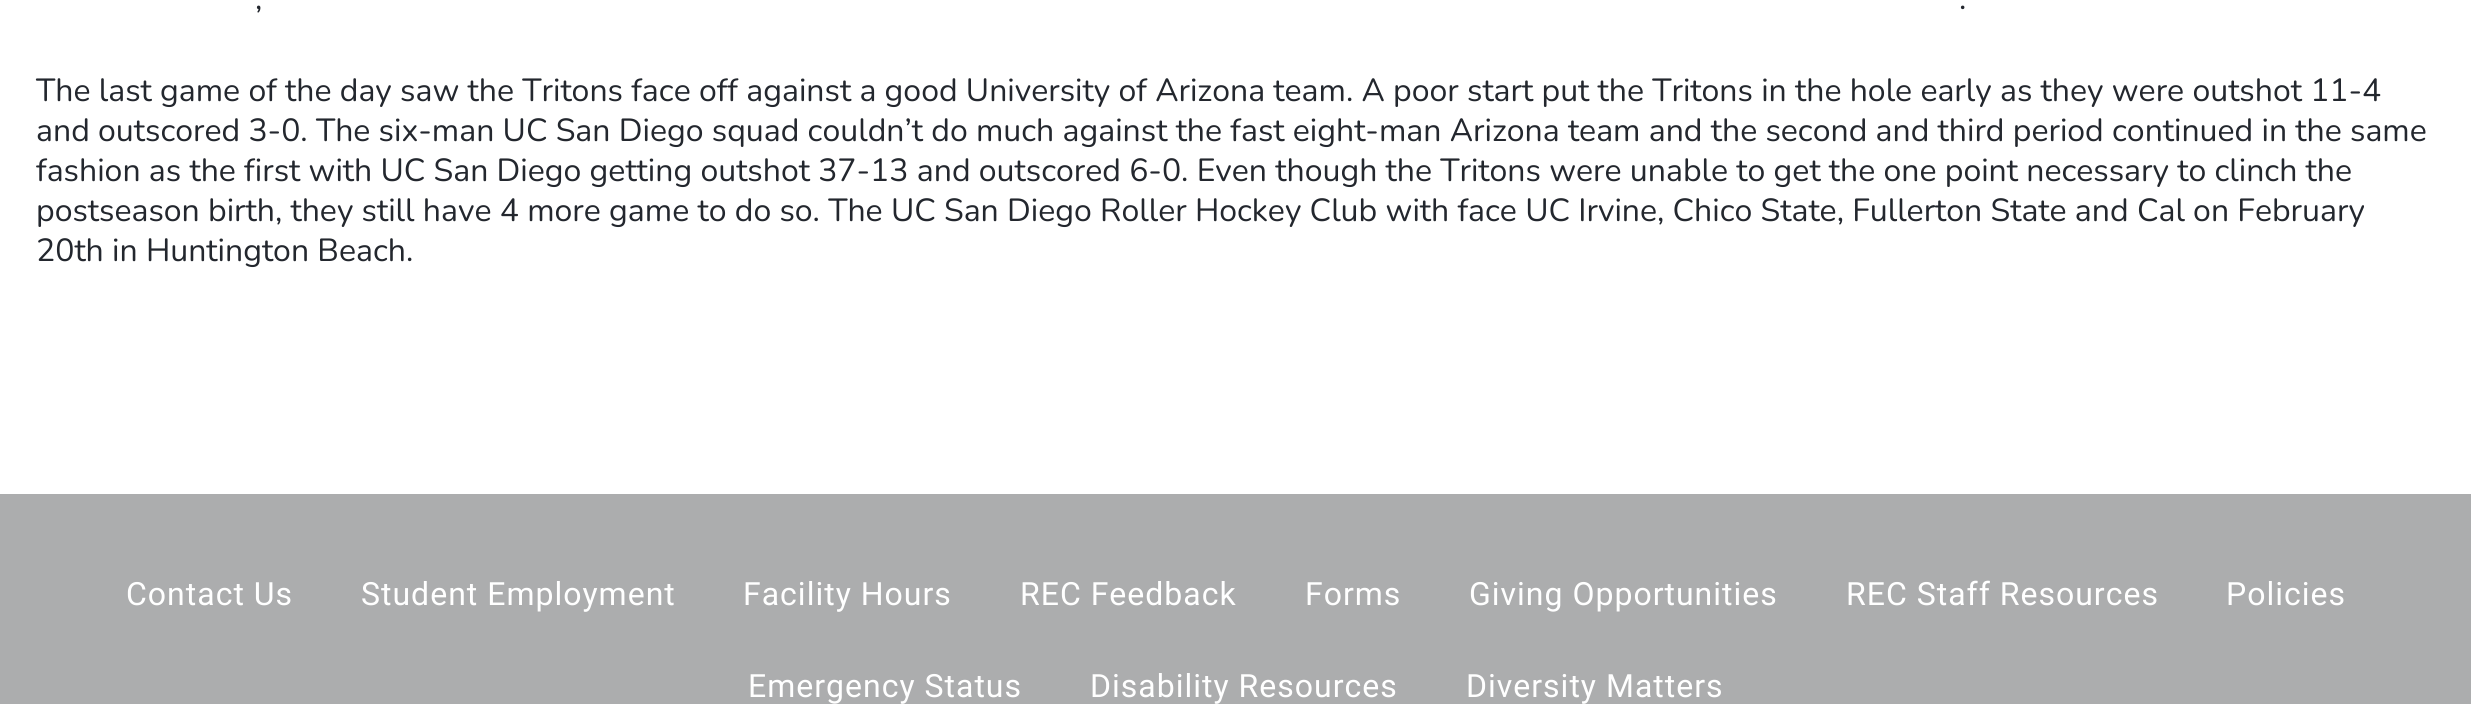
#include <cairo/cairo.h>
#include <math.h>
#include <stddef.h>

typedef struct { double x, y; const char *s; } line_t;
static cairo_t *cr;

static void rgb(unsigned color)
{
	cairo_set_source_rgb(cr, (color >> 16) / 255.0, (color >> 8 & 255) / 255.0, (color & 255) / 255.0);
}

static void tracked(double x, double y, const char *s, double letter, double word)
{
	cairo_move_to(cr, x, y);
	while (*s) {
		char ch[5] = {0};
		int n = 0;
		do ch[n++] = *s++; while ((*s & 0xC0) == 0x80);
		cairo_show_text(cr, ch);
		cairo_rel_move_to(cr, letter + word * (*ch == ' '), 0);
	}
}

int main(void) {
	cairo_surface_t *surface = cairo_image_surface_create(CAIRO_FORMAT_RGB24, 2471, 704);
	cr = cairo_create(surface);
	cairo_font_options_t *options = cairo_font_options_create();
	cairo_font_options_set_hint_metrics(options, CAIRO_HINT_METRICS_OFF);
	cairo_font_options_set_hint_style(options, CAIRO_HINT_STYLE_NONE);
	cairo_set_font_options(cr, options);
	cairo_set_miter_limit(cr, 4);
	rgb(0xffffff);
	cairo_paint(cr);
	rgb(0xacadae);
	cairo_rectangle(cr, 0, 494, 2471, 210);
	cairo_fill(cr);
	cairo_select_font_face(cr, "Nunito ExtraLight", CAIRO_FONT_SLANT_NORMAL, CAIRO_FONT_WEIGHT_NORMAL);
	cairo_set_font_size(cr, 32);
	rgb(0x23272e);
	{
		static const line_t items[] = {
			{255, 9, ","},
			{1959, 9, "."},
			{36, 101, "The last game of the day saw the Tritons face off against a good University of Arizona team. A poor start put the Tritons in the hole early as they were outshot 11-4"},
			{36, 141, "and outscored 3-0. The six-man UC San Diego squad couldn’t do much against the fast eight-man Arizona team and the second and third period continued in the same"},
			{36, 181, "fashion as the first with UC San Diego getting outshot 37-13 and outscored 6-0. Even though the Tritons were unable to get the one point necessary to clinch the"},
			{36, 221, "postseason birth, they still have 4 more game to do so. The UC San Diego Roller Hockey Club with face UC Irvine, Chico State, Fullerton State and Cal on February"},
			{36, 261, "20th in Huntington Beach."},
		};
		for (size_t i = 0; i < sizeof items / sizeof *items; i++) {
			cairo_move_to(cr, items[i].x, items[i].y);
			cairo_show_text(cr, items[i].s);
		}
	}
	cairo_select_font_face(cr, "Roboto", CAIRO_FONT_SLANT_NORMAL, CAIRO_FONT_WEIGHT_NORMAL);
	rgb(0xffffff);
	{
		static const line_t items[] = {
			{126, 605, "Contact Us"},
			{361, 605, "Student Employment"},
			{743, 605, "Facility Hours"},
			{1020, 605, "REC Feedback"},
			{1305, 605, "Forms"},
			{1469, 605, "Giving Opportunities"},
			{1846, 605, "REC Staff Resources"},
			{2226, 605, "Policies"},
			{748, 697, "Emergency Status"},
			{1090, 697, "Disability Resources"},
			{1466, 697, "Diversity Matters"},
		};
		for (size_t i = 0; i < sizeof items / sizeof *items; i++) {
			tracked(items[i].x, items[i].y, items[i].s, 1, 0);
		}
	}
	cairo_surface_write_to_png(surface, "page.png");
	cairo_font_options_destroy(options);
	cairo_destroy(cr);
	cairo_surface_destroy(surface);
	return 0;
}
